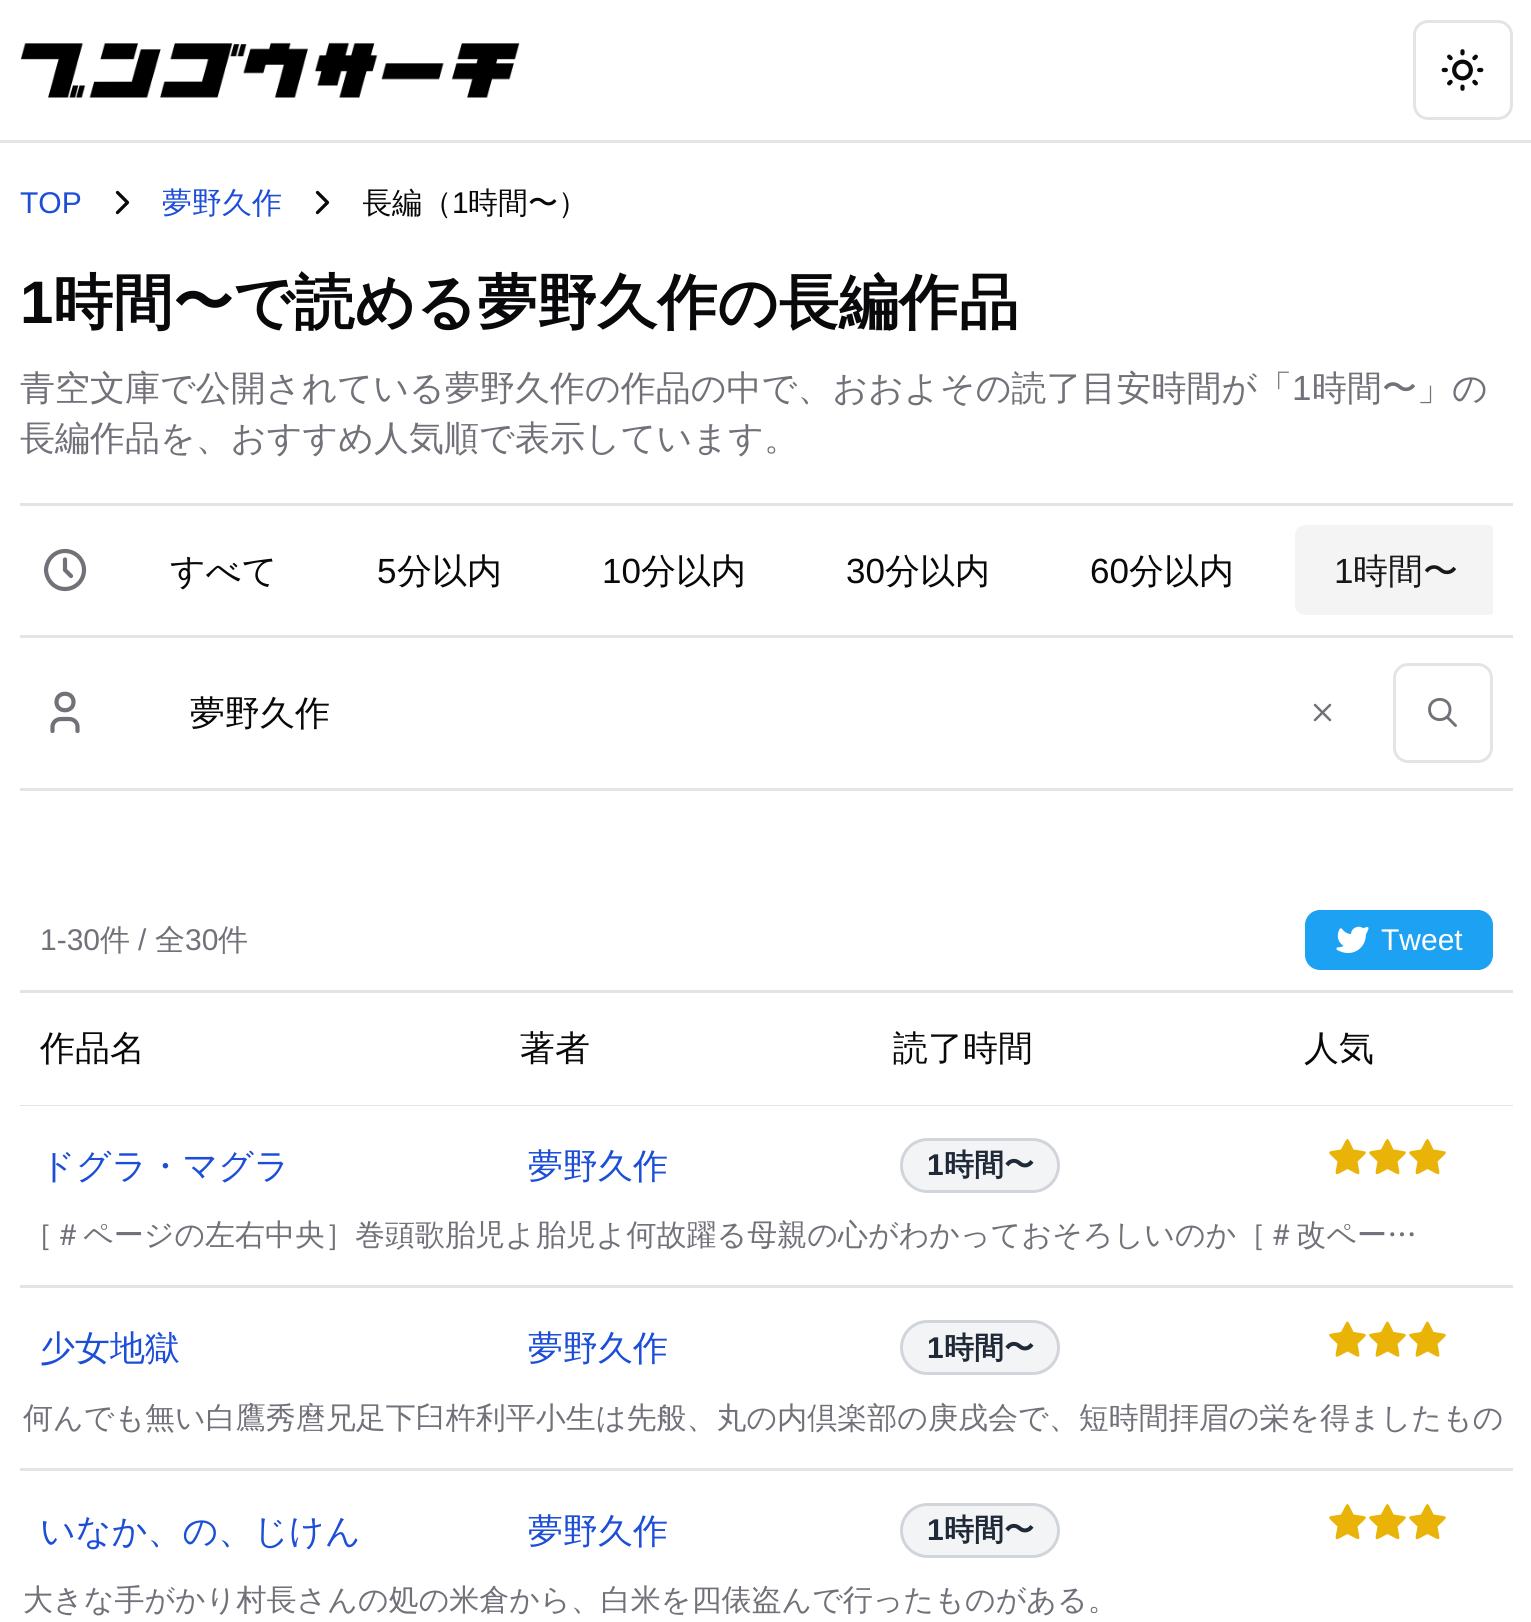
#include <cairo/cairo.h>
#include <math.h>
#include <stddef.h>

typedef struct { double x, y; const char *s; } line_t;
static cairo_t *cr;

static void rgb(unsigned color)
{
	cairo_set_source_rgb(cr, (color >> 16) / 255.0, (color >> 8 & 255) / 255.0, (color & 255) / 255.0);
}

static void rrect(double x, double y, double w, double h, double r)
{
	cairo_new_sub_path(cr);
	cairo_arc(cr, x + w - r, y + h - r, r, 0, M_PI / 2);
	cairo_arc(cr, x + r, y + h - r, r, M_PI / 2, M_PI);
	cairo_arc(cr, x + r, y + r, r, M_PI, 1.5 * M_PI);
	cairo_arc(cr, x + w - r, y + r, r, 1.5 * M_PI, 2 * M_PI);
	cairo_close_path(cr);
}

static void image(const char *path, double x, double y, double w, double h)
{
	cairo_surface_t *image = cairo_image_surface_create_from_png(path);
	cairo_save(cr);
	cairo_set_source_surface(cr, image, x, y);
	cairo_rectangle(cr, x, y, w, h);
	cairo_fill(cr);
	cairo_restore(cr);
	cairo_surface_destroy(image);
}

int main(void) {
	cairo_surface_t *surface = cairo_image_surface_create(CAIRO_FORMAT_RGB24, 1531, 1622);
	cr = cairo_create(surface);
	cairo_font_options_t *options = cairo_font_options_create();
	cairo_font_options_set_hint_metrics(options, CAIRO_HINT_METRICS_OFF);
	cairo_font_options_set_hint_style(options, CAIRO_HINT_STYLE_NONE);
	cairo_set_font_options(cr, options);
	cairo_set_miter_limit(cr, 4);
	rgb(0xffffff);
	cairo_paint(cr);
	rgb(0xe4e4e7);
	cairo_rectangle(cr, 0, 140, 1531, 3);
	cairo_fill(cr);
	image("img/1.png", 20, 42, 500, 56);
	rrect(1414.5, 21.5, 97, 97, 13.5);
	cairo_set_line_width(cr, 3);
	cairo_stroke(cr);
	image("img/2.png", 1441, 49, 43, 42);
	cairo_new_path(cr);
	cairo_move_to(cr, 117.5, 192.5);
	cairo_line_to(cr, 127.5, 202.5);
	cairo_line_to(cr, 117.5, 212.5);
	rgb(0x09090b);
	cairo_set_line_width(cr, 3.3);
	cairo_set_line_cap(cr, CAIRO_LINE_CAP_ROUND);
	cairo_set_line_join(cr, CAIRO_LINE_JOIN_ROUND);
	cairo_stroke(cr);
	cairo_new_path(cr);
	cairo_move_to(cr, 317.5, 192.5);
	cairo_line_to(cr, 327.5, 202.5);
	cairo_line_to(cr, 317.5, 212.5);
	cairo_stroke(cr);
	rgb(0xe4e4e7);
	cairo_rectangle(cr, 20, 503, 1493, 3);
	cairo_fill(cr);
	cairo_rectangle(cr, 20, 788, 1493, 3);
	cairo_fill(cr);
	cairo_new_path(cr);
	cairo_move_to(cr, 46, 570);
	cairo_curve_to(cr, 46.5, 580.5, 54.5, 589, 65, 589);
	cairo_curve_to(cr, 75.5, 589, 84, 580.5, 84, 570);
	cairo_curve_to(cr, 84, 559.5, 75.5, 551, 65, 551);
	cairo_curve_to(cr, 54.5, 551, 46.5, 559.5, 46, 570);
	cairo_move_to(cr, 65, 559.5);
	cairo_line_to(cr, 65, 570);
	cairo_line_to(cr, 71, 576);
	rgb(0x71717a);
	cairo_set_line_width(cr, 4.2);
	cairo_stroke(cr);
	cairo_save(cr);
	cairo_rectangle(cr, 130, 525, 1363, 90);
	cairo_clip(cr);
	rgb(0xf4f4f5);
	rrect(1295, 525, 203, 90, 10);
	cairo_fill(cr);
	cairo_restore(cr);
	rgb(0xe4e4e7);
	cairo_rectangle(cr, 20, 635, 1493, 3);
	cairo_fill(cr);
	cairo_new_path(cr);
	cairo_move_to(cr, 56.5, 702);
	cairo_curve_to(cr, 56.5, 713, 73.5, 713, 73.5, 702);
	cairo_curve_to(cr, 73.5, 691, 56.5, 691, 56.5, 702);
	cairo_move_to(cr, 52.5, 731);
	cairo_line_to(cr, 52.5, 727);
	cairo_curve_to(cr, 52.5, 722.5, 56, 719, 61, 719);
	cairo_line_to(cr, 69, 719);
	cairo_curve_to(cr, 74, 719, 77.5, 722.5, 77.5, 727);
	cairo_line_to(cr, 77.5, 731);
	rgb(0x71717a);
	cairo_stroke(cr);
	cairo_new_path(cr);
	cairo_move_to(cr, 1330, 705);
	cairo_line_to(cr, 1315, 720);
	cairo_move_to(cr, 1315, 705);
	cairo_line_to(cr, 1330, 720);
	cairo_set_line_width(cr, 2.5);
	cairo_stroke(cr);
	rrect(1394.5, 664.5, 97, 97, 13.5);
	rgb(0xe4e4e7);
	cairo_set_line_width(cr, 3);
	cairo_set_line_cap(cr, CAIRO_LINE_CAP_BUTT);
	cairo_set_line_join(cr, CAIRO_LINE_JOIN_MITER);
	cairo_stroke(cr);
	cairo_new_path(cr);
	cairo_move_to(cr, 1429.5, 709.5);
	cairo_curve_to(cr, 1429.5, 723, 1450, 723, 1450, 709.5);
	cairo_curve_to(cr, 1450, 696, 1429.5, 696, 1429.5, 709.5);
	cairo_move_to(cr, 1455.5, 725.5);
	cairo_line_to(cr, 1447, 717);
	rgb(0x71717a);
	cairo_set_line_width(cr, 2.9);
	cairo_set_line_cap(cr, CAIRO_LINE_CAP_ROUND);
	cairo_set_line_join(cr, CAIRO_LINE_JOIN_ROUND);
	cairo_stroke(cr);
	rgb(0x1da1f2);
	rrect(1305, 910, 188, 60, 15);
	cairo_fill(cr);
	image("img/3.png", 1336, 926, 33, 27);
	rgb(0xe4e4e7);
	cairo_rectangle(cr, 20, 990, 1493, 3);
	cairo_fill(cr);
	cairo_rectangle(cr, 20, 1105, 1493, 1);
	cairo_fill(cr);
	rgb(0xf3f4f6);
	rrect(901.5, 1139.5, 157, 52, 26);
	cairo_fill_preserve(cr);
	rgb(0xd1d5db);
	cairo_set_line_width(cr, 3);
	cairo_set_line_cap(cr, CAIRO_LINE_CAP_BUTT);
	cairo_set_line_join(cr, CAIRO_LINE_JOIN_MITER);
	cairo_stroke(cr);
	rgb(0xeab308);
	cairo_new_path(cr);
	cairo_move_to(cr, 1341, 1149.5);
	cairo_curve_to(cr, 1325.5, 1152, 1326, 1150.5, 1337.5, 1161.5);
	cairo_curve_to(cr, 1334.5, 1177.5, 1333.5, 1176.5, 1347.5, 1169);
	cairo_curve_to(cr, 1361.5, 1176.5, 1360.5, 1177.5, 1357.5, 1161.5);
	cairo_curve_to(cr, 1369, 1150.5, 1369.5, 1152, 1353.5, 1149.5);
	cairo_curve_to(cr, 1346.5, 1135.5, 1348.5, 1135.5, 1341, 1149.5);
	cairo_close_path(cr);
	cairo_fill(cr);
	cairo_new_path(cr);
	cairo_move_to(cr, 1381, 1149.5);
	cairo_curve_to(cr, 1365.5, 1152, 1366, 1150.5, 1377.5, 1161.5);
	cairo_curve_to(cr, 1374.5, 1177.5, 1373.5, 1176.5, 1387.5, 1169);
	cairo_curve_to(cr, 1401.5, 1176.5, 1400.5, 1177.5, 1397.5, 1161.5);
	cairo_curve_to(cr, 1409, 1150.5, 1409.5, 1152, 1393.5, 1149.5);
	cairo_curve_to(cr, 1386.5, 1135.5, 1388.5, 1135.5, 1381, 1149.5);
	cairo_close_path(cr);
	cairo_fill(cr);
	cairo_new_path(cr);
	cairo_move_to(cr, 1421, 1149.5);
	cairo_curve_to(cr, 1405.5, 1152, 1406, 1150.5, 1417.5, 1161.5);
	cairo_curve_to(cr, 1414.5, 1177.5, 1413.5, 1176.5, 1427.5, 1169);
	cairo_curve_to(cr, 1441.5, 1176.5, 1440.5, 1177.5, 1437.5, 1161.5);
	cairo_curve_to(cr, 1449, 1150.5, 1449.5, 1152, 1433.5, 1149.5);
	cairo_curve_to(cr, 1426.5, 1135.5, 1428.5, 1135.5, 1421, 1149.5);
	cairo_close_path(cr);
	cairo_fill(cr);
	rgb(0xe4e4e7);
	cairo_rectangle(cr, 20, 1285, 1493, 3);
	cairo_fill(cr);
	rgb(0xf3f4f6);
	rrect(901.5, 1321.5, 157, 52, 26);
	cairo_fill_preserve(cr);
	rgb(0xd1d5db);
	cairo_stroke(cr);
	rgb(0xeab308);
	cairo_new_path(cr);
	cairo_move_to(cr, 1341, 1332);
	cairo_curve_to(cr, 1325.5, 1334.5, 1326, 1333, 1337.5, 1344);
	cairo_curve_to(cr, 1334.5, 1360, 1333.5, 1359, 1347.5, 1351.5);
	cairo_curve_to(cr, 1361.5, 1359, 1360.5, 1360, 1357.5, 1344);
	cairo_curve_to(cr, 1369, 1333, 1369.5, 1334.5, 1353.5, 1332);
	cairo_curve_to(cr, 1346.5, 1318, 1348.5, 1318, 1341, 1332);
	cairo_close_path(cr);
	cairo_fill(cr);
	cairo_new_path(cr);
	cairo_move_to(cr, 1381, 1332);
	cairo_curve_to(cr, 1365.5, 1334.5, 1366, 1333, 1377.5, 1344);
	cairo_curve_to(cr, 1374.5, 1360, 1373.5, 1359, 1387.5, 1351.5);
	cairo_curve_to(cr, 1401.5, 1359, 1400.5, 1360, 1397.5, 1344);
	cairo_curve_to(cr, 1409, 1333, 1409.5, 1334.5, 1393.5, 1332);
	cairo_curve_to(cr, 1386.5, 1318, 1388.5, 1318, 1381, 1332);
	cairo_close_path(cr);
	cairo_fill(cr);
	cairo_new_path(cr);
	cairo_move_to(cr, 1421, 1332);
	cairo_curve_to(cr, 1405.5, 1334.5, 1406, 1333, 1417.5, 1344);
	cairo_curve_to(cr, 1414.5, 1360, 1413.5, 1359, 1427.5, 1351.5);
	cairo_curve_to(cr, 1441.5, 1359, 1440.5, 1360, 1437.5, 1344);
	cairo_curve_to(cr, 1449, 1333, 1449.5, 1334.5, 1433.5, 1332);
	cairo_curve_to(cr, 1426.5, 1318, 1428.5, 1318, 1421, 1332);
	cairo_close_path(cr);
	cairo_fill(cr);
	rgb(0xe4e4e7);
	cairo_rectangle(cr, 20, 1468, 1493, 3);
	cairo_fill(cr);
	rgb(0xf3f4f6);
	rrect(901.5, 1504.5, 157, 52, 26);
	cairo_fill_preserve(cr);
	rgb(0xd1d5db);
	cairo_stroke(cr);
	rgb(0xeab308);
	cairo_new_path(cr);
	cairo_move_to(cr, 1341, 1514.5);
	cairo_curve_to(cr, 1325.5, 1517, 1326, 1515.5, 1337.5, 1526.5);
	cairo_curve_to(cr, 1334.5, 1542.5, 1333.5, 1541.5, 1347.5, 1534);
	cairo_curve_to(cr, 1361.5, 1541.5, 1360.5, 1542.5, 1357.5, 1526.5);
	cairo_curve_to(cr, 1369, 1515.5, 1369.5, 1517, 1353.5, 1514.5);
	cairo_curve_to(cr, 1346.5, 1500.5, 1348.5, 1500.5, 1341, 1514.5);
	cairo_close_path(cr);
	cairo_fill(cr);
	cairo_new_path(cr);
	cairo_move_to(cr, 1381, 1514.5);
	cairo_curve_to(cr, 1365.5, 1517, 1366, 1515.5, 1377.5, 1526.5);
	cairo_curve_to(cr, 1374.5, 1542.5, 1373.5, 1541.5, 1387.5, 1534);
	cairo_curve_to(cr, 1401.5, 1541.5, 1400.5, 1542.5, 1397.5, 1526.5);
	cairo_curve_to(cr, 1409, 1515.5, 1409.5, 1517, 1393.5, 1514.5);
	cairo_curve_to(cr, 1386.5, 1500.5, 1388.5, 1500.5, 1381, 1514.5);
	cairo_close_path(cr);
	cairo_fill(cr);
	cairo_new_path(cr);
	cairo_move_to(cr, 1421, 1514.5);
	cairo_curve_to(cr, 1405.5, 1517, 1406, 1515.5, 1417.5, 1526.5);
	cairo_curve_to(cr, 1414.5, 1542.5, 1413.5, 1541.5, 1427.5, 1534);
	cairo_curve_to(cr, 1441.5, 1541.5, 1440.5, 1542.5, 1437.5, 1526.5);
	cairo_curve_to(cr, 1449, 1515.5, 1449.5, 1517, 1433.5, 1514.5);
	cairo_curve_to(cr, 1426.5, 1500.5, 1428.5, 1500.5, 1421, 1514.5);
	cairo_close_path(cr);
	cairo_fill(cr);
	cairo_select_font_face(cr, "Liberation Sans", CAIRO_FONT_SLANT_NORMAL, CAIRO_FONT_WEIGHT_NORMAL);
	cairo_set_font_size(cr, 30);
	rgb(0x1d4ed8);
	cairo_move_to(cr, 20, 213);
	cairo_show_text(cr, "TOP");
	cairo_save(cr);
	cairo_rectangle(cr, 163, 183, 120, 40);
	cairo_clip(cr);
	cairo_select_font_face(cr, "WenQuanYi Zen Hei Medium", CAIRO_FONT_SLANT_NORMAL, CAIRO_FONT_WEIGHT_NORMAL);
	cairo_move_to(cr, 162, 213);
	cairo_show_text(cr, "夢野久作");
	cairo_restore(cr);
	cairo_save(cr);
	cairo_rectangle(cr, 363, 183, 225, 40);
	cairo_clip(cr);
	cairo_select_font_face(cr, "WenQuanYi Zen Hei Medium", CAIRO_FONT_SLANT_NORMAL, CAIRO_FONT_WEIGHT_NORMAL);
	rgb(0x09090b);
	cairo_move_to(cr, 362, 213);
	cairo_show_text(cr, "長編（");
	cairo_restore(cr);
	rgb(0x09090b);
	cairo_move_to(cr, 452, 213);
	cairo_show_text(cr, "1");
	cairo_select_font_face(cr, "WenQuanYi Zen Hei Medium", CAIRO_FONT_SLANT_NORMAL, CAIRO_FONT_WEIGHT_NORMAL);
	cairo_move_to(cr, 468, 213);
	cairo_show_text(cr, "時間〜）");
	cairo_select_font_face(cr, "Liberation Sans", CAIRO_FONT_SLANT_NORMAL, CAIRO_FONT_WEIGHT_BOLD);
	cairo_set_font_size(cr, 60);
	cairo_move_to(cr, 20, 323);
	cairo_show_text(cr, "1");
	cairo_select_font_face(cr, "WenQuanYi Zen Hei", CAIRO_FONT_SLANT_NORMAL, CAIRO_FONT_WEIGHT_BOLD);
	cairo_move_to(cr, 53, 323);
	cairo_show_text(cr, "時間〜で読める夢野久作の長編作品");
	cairo_select_font_face(cr, "WenQuanYi Zen Hei Medium", CAIRO_FONT_SLANT_NORMAL, CAIRO_FONT_WEIGHT_NORMAL);
	cairo_set_font_size(cr, 35);
	rgb(0x71717a);
	cairo_move_to(cr, 20, 400);
	cairo_show_text(cr, "青空文庫で公開されている夢野久作の作品の中で、おおよその読了目安時間が「");
	cairo_select_font_face(cr, "Liberation Sans", CAIRO_FONT_SLANT_NORMAL, CAIRO_FONT_WEIGHT_NORMAL);
	cairo_move_to(cr, 1292, 400);
	cairo_show_text(cr, "1");
	cairo_select_font_face(cr, "WenQuanYi Zen Hei Medium", CAIRO_FONT_SLANT_NORMAL, CAIRO_FONT_WEIGHT_NORMAL);
	cairo_move_to(cr, 1312, 400);
	cairo_show_text(cr, "時間〜」の");
	cairo_move_to(cr, 20, 450);
	cairo_show_text(cr, "長編作品を、おすすめ人気順で表示しています。");
	rgb(0x09090b);
	cairo_move_to(cr, 170, 583);
	cairo_show_text(cr, "すべて");
	cairo_select_font_face(cr, "Liberation Sans", CAIRO_FONT_SLANT_NORMAL, CAIRO_FONT_WEIGHT_NORMAL);
	cairo_move_to(cr, 377, 583);
	cairo_show_text(cr, "5");
	cairo_select_font_face(cr, "WenQuanYi Zen Hei Medium", CAIRO_FONT_SLANT_NORMAL, CAIRO_FONT_WEIGHT_NORMAL);
	cairo_move_to(cr, 397, 583);
	cairo_show_text(cr, "分以内");
	cairo_select_font_face(cr, "Liberation Sans", CAIRO_FONT_SLANT_NORMAL, CAIRO_FONT_WEIGHT_NORMAL);
	cairo_move_to(cr, 602, 583);
	cairo_show_text(cr, "10");
	cairo_select_font_face(cr, "WenQuanYi Zen Hei Medium", CAIRO_FONT_SLANT_NORMAL, CAIRO_FONT_WEIGHT_NORMAL);
	cairo_move_to(cr, 641, 583);
	cairo_show_text(cr, "分以内");
	cairo_select_font_face(cr, "Liberation Sans", CAIRO_FONT_SLANT_NORMAL, CAIRO_FONT_WEIGHT_NORMAL);
	cairo_move_to(cr, 846, 583);
	cairo_show_text(cr, "30");
	cairo_select_font_face(cr, "WenQuanYi Zen Hei Medium", CAIRO_FONT_SLANT_NORMAL, CAIRO_FONT_WEIGHT_NORMAL);
	cairo_move_to(cr, 885, 583);
	cairo_show_text(cr, "分以内");
	cairo_select_font_face(cr, "Liberation Sans", CAIRO_FONT_SLANT_NORMAL, CAIRO_FONT_WEIGHT_NORMAL);
	cairo_move_to(cr, 1090, 583);
	cairo_show_text(cr, "60");
	cairo_select_font_face(cr, "WenQuanYi Zen Hei Medium", CAIRO_FONT_SLANT_NORMAL, CAIRO_FONT_WEIGHT_NORMAL);
	cairo_move_to(cr, 1129, 583);
	cairo_show_text(cr, "分以内");
	cairo_select_font_face(cr, "Liberation Sans", CAIRO_FONT_SLANT_NORMAL, CAIRO_FONT_WEIGHT_NORMAL);
	rgb(0x18181b);
	cairo_move_to(cr, 1334, 583);
	cairo_show_text(cr, "1");
	cairo_select_font_face(cr, "WenQuanYi Zen Hei Medium", CAIRO_FONT_SLANT_NORMAL, CAIRO_FONT_WEIGHT_NORMAL);
	cairo_move_to(cr, 1353, 583);
	cairo_show_text(cr, "時間〜");
	rgb(0x09090b);
	cairo_move_to(cr, 190, 725);
	cairo_show_text(cr, "夢野久作");
	cairo_select_font_face(cr, "Liberation Sans", CAIRO_FONT_SLANT_NORMAL, CAIRO_FONT_WEIGHT_NORMAL);
	cairo_set_font_size(cr, 30);
	rgb(0x71717a);
	cairo_move_to(cr, 40, 950);
	cairo_show_text(cr, "1-30");
	cairo_select_font_face(cr, "WenQuanYi Zen Hei Medium", CAIRO_FONT_SLANT_NORMAL, CAIRO_FONT_WEIGHT_NORMAL);
	cairo_move_to(cr, 100, 950);
	cairo_show_text(cr, "件");
	cairo_select_font_face(cr, "Liberation Sans", CAIRO_FONT_SLANT_NORMAL, CAIRO_FONT_WEIGHT_NORMAL);
	cairo_move_to(cr, 138, 950);
	cairo_show_text(cr, "/");
	cairo_select_font_face(cr, "WenQuanYi Zen Hei Medium", CAIRO_FONT_SLANT_NORMAL, CAIRO_FONT_WEIGHT_NORMAL);
	cairo_move_to(cr, 155, 950);
	cairo_show_text(cr, "全");
	cairo_select_font_face(cr, "Liberation Sans", CAIRO_FONT_SLANT_NORMAL, CAIRO_FONT_WEIGHT_NORMAL);
	cairo_move_to(cr, 185, 950);
	cairo_show_text(cr, "30");
	cairo_select_font_face(cr, "WenQuanYi Zen Hei Medium", CAIRO_FONT_SLANT_NORMAL, CAIRO_FONT_WEIGHT_NORMAL);
	cairo_move_to(cr, 218, 950);
	cairo_show_text(cr, "件");
	cairo_select_font_face(cr, "Liberation Sans", CAIRO_FONT_SLANT_NORMAL, CAIRO_FONT_WEIGHT_NORMAL);
	rgb(0xffffff);
	cairo_move_to(cr, 1381, 950);
	cairo_show_text(cr, "Tweet");
	cairo_select_font_face(cr, "WenQuanYi Zen Hei Medium", CAIRO_FONT_SLANT_NORMAL, CAIRO_FONT_WEIGHT_NORMAL);
	cairo_set_font_size(cr, 35);
	rgb(0x09090b);
	{
		static const line_t items[] = {
			{40, 1060, "作品名"},
			{520, 1060, "著者"},
			{893, 1060, "読了時間"},
			{1304, 1060, "人気"},
		};
		for (size_t i = 0; i < sizeof items / sizeof *items; i++) {
			cairo_move_to(cr, items[i].x, items[i].y);
			cairo_show_text(cr, items[i].s);
		}
	}
	rgb(0x1d4ed8);
	cairo_move_to(cr, 40, 1178);
	cairo_show_text(cr, "ドグラ・マグラ");
	cairo_move_to(cr, 528, 1178);
	cairo_show_text(cr, "夢野久作");
	cairo_select_font_face(cr, "Liberation Sans", CAIRO_FONT_SLANT_NORMAL, CAIRO_FONT_WEIGHT_BOLD);
	cairo_set_font_size(cr, 30);
	rgb(0x1f2937);
	cairo_move_to(cr, 927, 1175);
	cairo_show_text(cr, "1");
	cairo_select_font_face(cr, "WenQuanYi Zen Hei", CAIRO_FONT_SLANT_NORMAL, CAIRO_FONT_WEIGHT_BOLD);
	cairo_move_to(cr, 944, 1175);
	cairo_show_text(cr, "時間〜");
	cairo_select_font_face(cr, "WenQuanYi Zen Hei Medium", CAIRO_FONT_SLANT_NORMAL, CAIRO_FONT_WEIGHT_NORMAL);
	rgb(0x71717a);
	cairo_move_to(cr, 23, 1245);
	cairo_show_text(cr, "［＃ページの左右中央］巻頭歌胎児よ胎児よ何故躍る母親の心がわかっておそろしいのか［＃改ペー…");
	cairo_set_font_size(cr, 35);
	rgb(0x1d4ed8);
	cairo_move_to(cr, 40, 1360);
	cairo_show_text(cr, "少女地獄");
	cairo_move_to(cr, 528, 1360);
	cairo_show_text(cr, "夢野久作");
	cairo_select_font_face(cr, "Liberation Sans", CAIRO_FONT_SLANT_NORMAL, CAIRO_FONT_WEIGHT_BOLD);
	cairo_set_font_size(cr, 30);
	rgb(0x1f2937);
	cairo_move_to(cr, 927, 1358);
	cairo_show_text(cr, "1");
	cairo_select_font_face(cr, "WenQuanYi Zen Hei", CAIRO_FONT_SLANT_NORMAL, CAIRO_FONT_WEIGHT_BOLD);
	cairo_move_to(cr, 944, 1358);
	cairo_show_text(cr, "時間〜");
	cairo_select_font_face(cr, "WenQuanYi Zen Hei Medium", CAIRO_FONT_SLANT_NORMAL, CAIRO_FONT_WEIGHT_NORMAL);
	rgb(0x71717a);
	cairo_move_to(cr, 23, 1428);
	cairo_show_text(cr, "何んでも無い白鷹秀麿兄足下臼杵利平小生は先般、丸の内倶楽部の庚戌会で、短時間拝眉の栄を得ましたもの");
	cairo_set_font_size(cr, 35);
	rgb(0x1d4ed8);
	cairo_move_to(cr, 40, 1543);
	cairo_show_text(cr, "いなか、の、じけん");
	cairo_move_to(cr, 528, 1543);
	cairo_show_text(cr, "夢野久作");
	cairo_select_font_face(cr, "Liberation Sans", CAIRO_FONT_SLANT_NORMAL, CAIRO_FONT_WEIGHT_BOLD);
	cairo_set_font_size(cr, 30);
	rgb(0x1f2937);
	cairo_move_to(cr, 927, 1540);
	cairo_show_text(cr, "1");
	cairo_select_font_face(cr, "WenQuanYi Zen Hei", CAIRO_FONT_SLANT_NORMAL, CAIRO_FONT_WEIGHT_BOLD);
	cairo_move_to(cr, 944, 1540);
	cairo_show_text(cr, "時間〜");
	cairo_select_font_face(cr, "WenQuanYi Zen Hei Medium", CAIRO_FONT_SLANT_NORMAL, CAIRO_FONT_WEIGHT_NORMAL);
	rgb(0x71717a);
	cairo_move_to(cr, 23, 1610);
	cairo_show_text(cr, "大きな手がかり村長さんの処の米倉から、白米を四俵盗んで行ったものがある。");
	cairo_surface_write_to_png(surface, "page.png");
	cairo_font_options_destroy(options);
	cairo_destroy(cr);
	cairo_surface_destroy(surface);
	return 0;
}
